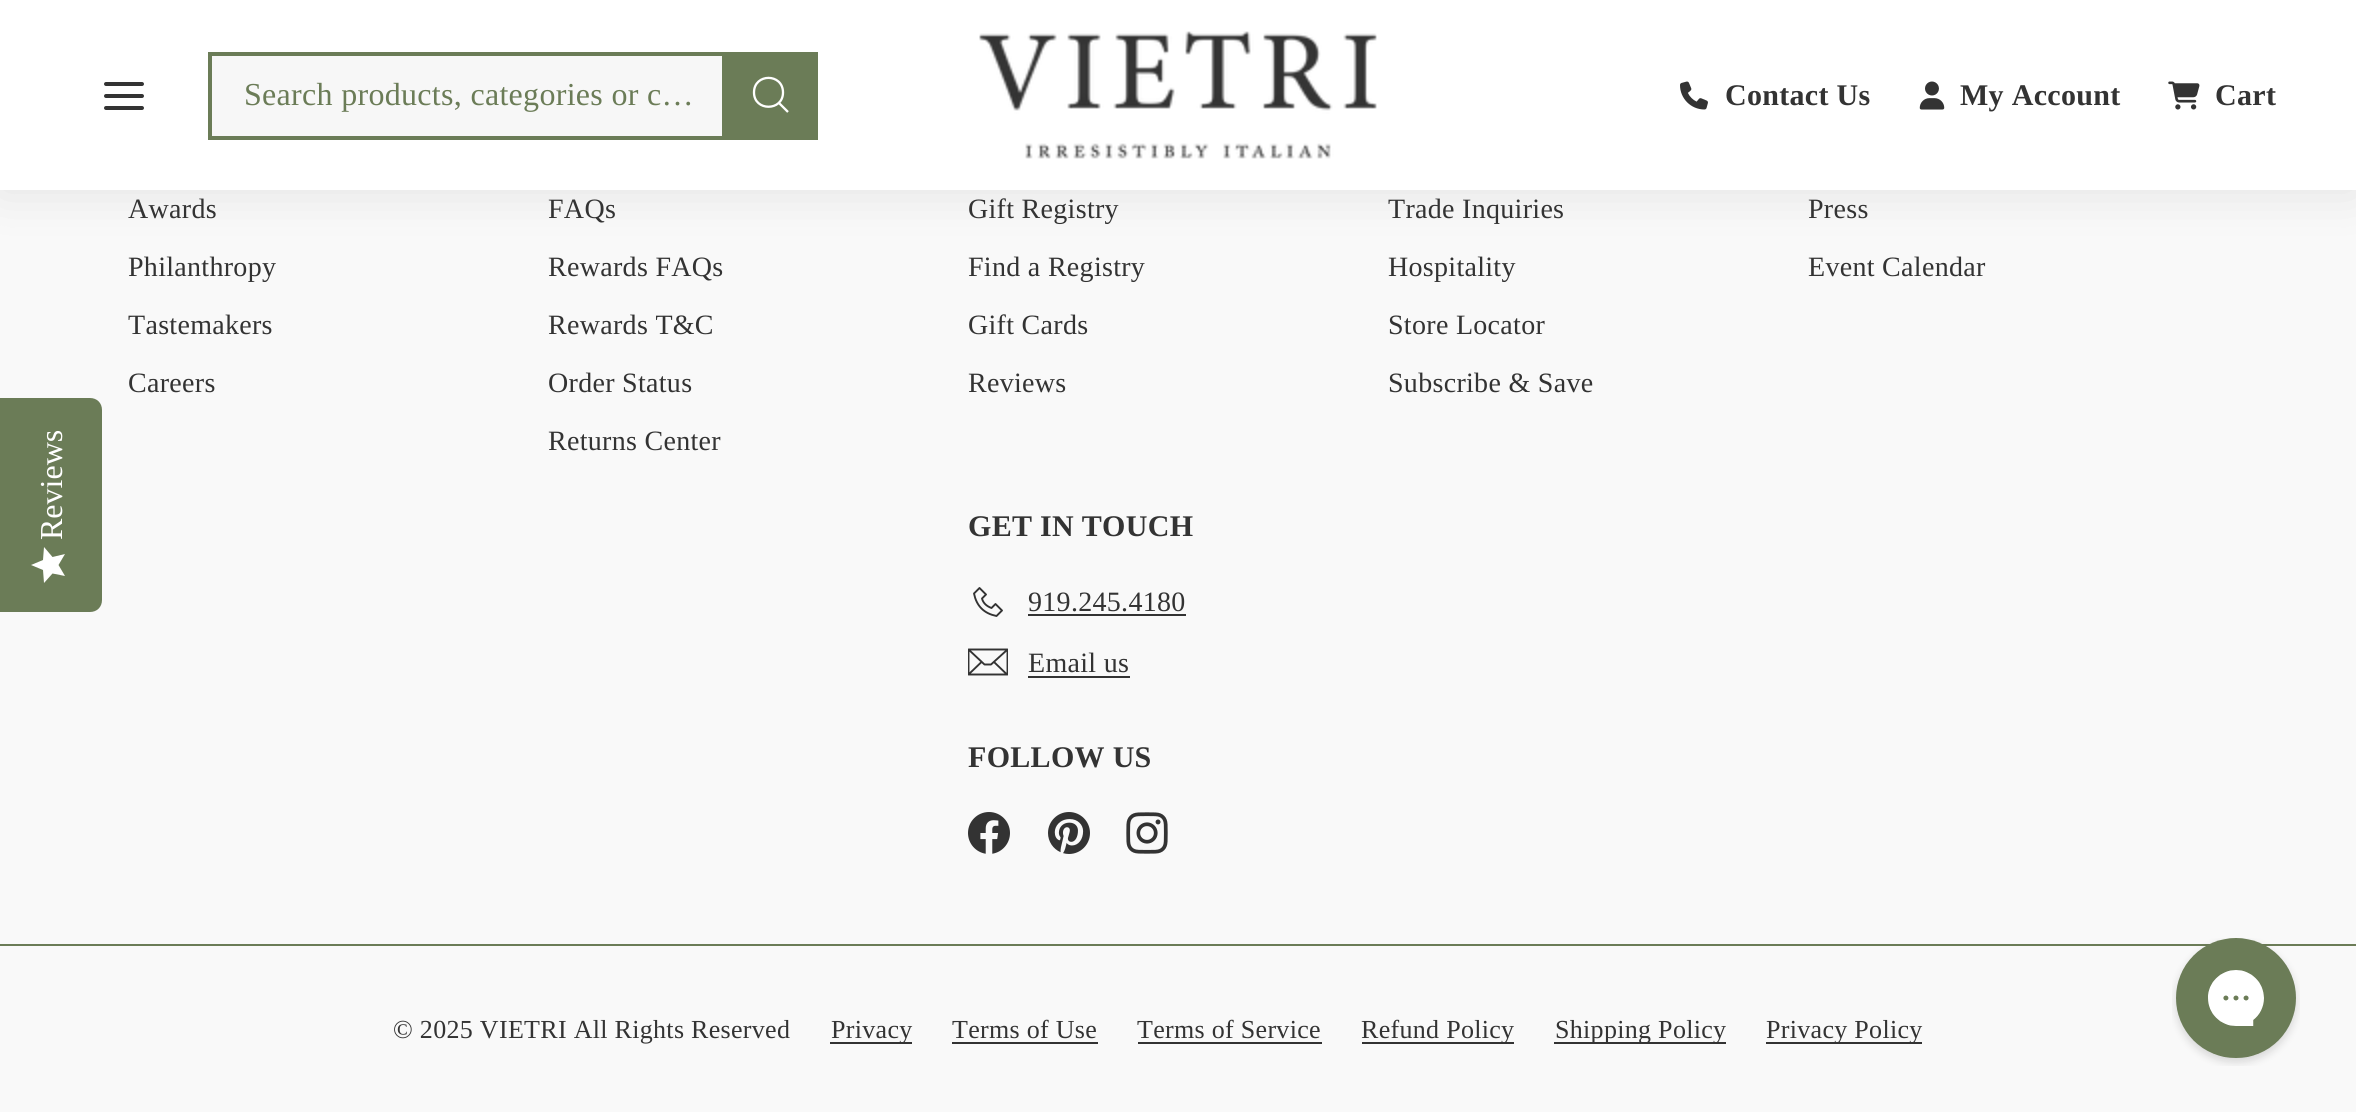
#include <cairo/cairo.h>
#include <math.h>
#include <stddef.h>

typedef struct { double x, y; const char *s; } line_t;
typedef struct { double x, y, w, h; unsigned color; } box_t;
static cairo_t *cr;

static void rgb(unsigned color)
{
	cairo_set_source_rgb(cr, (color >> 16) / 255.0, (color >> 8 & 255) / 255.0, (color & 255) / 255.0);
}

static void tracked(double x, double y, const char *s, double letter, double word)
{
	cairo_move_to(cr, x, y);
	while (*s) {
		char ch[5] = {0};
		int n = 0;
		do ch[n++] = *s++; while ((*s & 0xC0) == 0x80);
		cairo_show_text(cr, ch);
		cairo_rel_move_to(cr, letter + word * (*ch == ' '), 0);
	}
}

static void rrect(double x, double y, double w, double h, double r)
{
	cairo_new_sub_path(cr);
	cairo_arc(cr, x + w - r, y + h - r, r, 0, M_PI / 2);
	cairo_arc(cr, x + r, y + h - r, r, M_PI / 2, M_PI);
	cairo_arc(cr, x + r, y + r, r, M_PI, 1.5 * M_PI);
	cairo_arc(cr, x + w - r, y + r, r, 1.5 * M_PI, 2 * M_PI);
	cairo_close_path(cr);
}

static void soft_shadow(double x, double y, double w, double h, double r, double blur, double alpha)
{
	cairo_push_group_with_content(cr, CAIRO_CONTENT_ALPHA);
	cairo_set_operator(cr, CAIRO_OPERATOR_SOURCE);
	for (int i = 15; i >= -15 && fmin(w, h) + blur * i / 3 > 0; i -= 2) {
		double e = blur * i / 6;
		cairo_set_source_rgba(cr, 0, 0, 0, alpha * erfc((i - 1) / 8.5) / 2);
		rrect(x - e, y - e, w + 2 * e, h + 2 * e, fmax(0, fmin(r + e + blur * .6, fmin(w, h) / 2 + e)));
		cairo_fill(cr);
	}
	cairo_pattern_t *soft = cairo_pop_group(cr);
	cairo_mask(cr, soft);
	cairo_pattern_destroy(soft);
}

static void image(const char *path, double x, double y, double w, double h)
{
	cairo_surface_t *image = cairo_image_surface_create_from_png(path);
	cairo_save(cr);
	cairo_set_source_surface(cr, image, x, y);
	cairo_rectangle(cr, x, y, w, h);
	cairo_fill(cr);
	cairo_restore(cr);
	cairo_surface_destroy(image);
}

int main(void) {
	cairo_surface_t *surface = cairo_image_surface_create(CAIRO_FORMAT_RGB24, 2356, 1112);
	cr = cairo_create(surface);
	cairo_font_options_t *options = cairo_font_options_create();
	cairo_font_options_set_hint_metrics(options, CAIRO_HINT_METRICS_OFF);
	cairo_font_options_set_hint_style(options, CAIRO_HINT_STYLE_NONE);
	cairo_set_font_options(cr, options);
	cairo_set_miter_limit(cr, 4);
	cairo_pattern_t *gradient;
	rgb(0xf9f9f9);
	cairo_paint(cr);
	rgb(0x6b7c57);
	cairo_new_path(cr);
	cairo_move_to(cr, 0, 612);
	cairo_line_to(cr, 0, 398);
	cairo_line_to(cr, 90, 398);
	cairo_curve_to(cr, 97, 398, 102, 403, 102, 410);
	cairo_line_to(cr, 102, 600);
	cairo_curve_to(cr, 102, 607, 97, 612, 90, 612);
	cairo_close_path(cr);
	cairo_fill(cr);
	gradient = cairo_pattern_create_linear(31, 583, 31, 547);
	cairo_pattern_add_color_stop_rgba(gradient, 1, 1, 1, 1, 1);
	cairo_pattern_add_color_stop_rgba(gradient, 1, 0.918, 0.918, 0.918, 1);
	cairo_set_source(cr, gradient);
	cairo_pattern_destroy(gradient);
	cairo_new_path(cr);
	cairo_move_to(cr, 58.5, 565);
	cairo_line_to(cr, 65, 554);
	cairo_line_to(cr, 52.5, 557);
	cairo_line_to(cr, 44, 547);
	cairo_line_to(cr, 43, 560);
	cairo_line_to(cr, 31, 565);
	cairo_line_to(cr, 43, 570);
	cairo_line_to(cr, 44, 583);
	cairo_line_to(cr, 52.5, 573.5);
	cairo_line_to(cr, 65, 576);
	cairo_close_path(cr);
	cairo_fill(cr);
	rgb(0x000000);
	soft_shadow(0, 0, 2356, 190, 0, 25, 0.1);
	rgb(0xffffff);
	cairo_rectangle(cr, 0, 0, 2356, 190);
	cairo_fill(cr);
	rgb(0x333333);
	rrect(104, 82, 40, 4, 2);
	cairo_fill(cr);
	rrect(104, 94, 40, 4, 2);
	cairo_fill(cr);
	rrect(104, 106, 40, 4, 2);
	cairo_fill(cr);
	rgb(0xf7f7f7);
	cairo_rectangle(cr, 212, 56, 510, 80);
	cairo_fill(cr);
	cairo_rectangle(cr, 210, 54, 606, 84);
	rgb(0x6b7c57);
	cairo_set_line_width(cr, 4);
	cairo_stroke(cr);
	cairo_rectangle(cr, 722, 56, 92, 80);
	cairo_fill(cr);
	cairo_new_path(cr);
	cairo_move_to(cr, 783, 92.5);
	cairo_curve_to(cr, 783, 111.5, 754, 111.5, 754, 92.5);
	cairo_curve_to(cr, 754, 73, 783, 73, 783, 92.5);
	cairo_move_to(cr, 788, 112);
	cairo_line_to(cr, 779, 103);
	rgb(0xffffff);
	cairo_set_line_width(cr, 2.3);
	cairo_set_line_join(cr, CAIRO_LINE_JOIN_ROUND);
	cairo_stroke(cr);
	image("img/1.png", 979, 31, 398, 128);
	image("img/2.png", 1680, 81, 28, 29);
	image("img/3.png", 1919, 81, 26, 29);
	image("img/4.png", 2168, 81, 32, 29);
	cairo_new_path(cr);
	cairo_move_to(cr, 979.5, 588);
	cairo_line_to(cr, 986, 594.5);
	cairo_line_to(cr, 982, 598.5);
	cairo_curve_to(cr, 983, 602.5, 986, 606, 991.5, 608);
	cairo_line_to(cr, 995.5, 604);
	cairo_line_to(cr, 1002, 610.5);
	cairo_line_to(cr, 996.5, 616);
	cairo_curve_to(cr, 984, 613.5, 976.5, 606, 974, 593.5);
	cairo_close_path(cr);
	rgb(0x333333);
	cairo_set_line_width(cr, 1.9);
	cairo_stroke(cr);
	cairo_rectangle(cr, 1028, 614, 158, 2);
	cairo_fill(cr);
	cairo_save(cr);
	cairo_rectangle(cr, 968, 642, 40, 40);
	cairo_clip(cr);
	cairo_new_path(cr);
	cairo_move_to(cr, 1007.5, 674.5);
	cairo_line_to(cr, 968.5, 674.5);
	cairo_line_to(cr, 968.5, 649.5);
	cairo_line_to(cr, 1007.5, 649.5);
	cairo_close_path(cr);
	cairo_move_to(cr, 968.5, 649.5);
	cairo_line_to(cr, 984.5, 664.5);
	cairo_line_to(cr, 991, 664.5);
	cairo_line_to(cr, 1007.5, 649.5);
	cairo_move_to(cr, 981.5, 662);
	cairo_line_to(cr, 969, 674);
	cairo_move_to(cr, 1007, 674.5);
	cairo_line_to(cr, 994, 662);
	cairo_stroke(cr);
	cairo_restore(cr);
	cairo_rectangle(cr, 1028, 676, 102, 2);
	cairo_fill(cr);
	image("img/5.png", 968, 812, 42, 42);
	image("img/6.png", 1048, 812, 42, 42);
	image("img/7.png", 1126, 812, 42, 42);
	{
		static const box_t items[] = {
			{0, 944, 2356, 2, 0x6b7c57},
			{830, 1042, 82, 2, 0x333333},
			{952, 1042, 146, 2, 0x333333},
			{1138, 1042, 184, 2, 0x333333},
			{1362, 1042, 152, 2, 0x333333},
			{1554, 1042, 172, 2, 0x333333},
			{1766, 1042, 156, 2, 0x333333},
		};
		for (size_t i = 0; i < sizeof items / sizeof *items; i++) {
			rgb(items[i].color);
			cairo_rectangle(cr, items[i].x, items[i].y, items[i].w, items[i].h);
			cairo_fill(cr);
		}
	}
	image("img/8.png", 2172, 938, 128, 128);
	cairo_select_font_face(cr, "Liberation Serif", CAIRO_FONT_SLANT_NORMAL, CAIRO_FONT_WEIGHT_NORMAL);
	cairo_set_font_size(cr, 32);
	rgb(0xffffff);
	cairo_save(cr);
	cairo_translate(cr, 62, 540);
	cairo_rotate(cr, -90 * M_PI / 180);
	cairo_move_to(cr, 0, 0);
	cairo_show_text(cr, "Reviews");
	cairo_restore(cr);
	rgb(0x6b7c57);
	tracked(244, 105, "Search products, categories or c…", 0.3, 0);
	cairo_select_font_face(cr, "Liberation Serif", CAIRO_FONT_SLANT_NORMAL, CAIRO_FONT_WEIGHT_BOLD);
	cairo_set_font_size(cr, 30);
	rgb(0x333333);
	{
		static const line_t items[] = {
			{1725, 105, "Contact Us"},
			{1960, 105, "My Account"},
			{2215, 105, "Cart"},
		};
		for (size_t i = 0; i < sizeof items / sizeof *items; i++) {
			tracked(items[i].x, items[i].y, items[i].s, 0.3, 0);
		}
	}
	cairo_select_font_face(cr, "Liberation Serif", CAIRO_FONT_SLANT_NORMAL, CAIRO_FONT_WEIGHT_NORMAL);
	cairo_set_font_size(cr, 28);
	{
		static const line_t items[] = {
			{128, 218, "Awards"},
			{128, 276, "Philanthropy"},
			{128, 334, "Tastemakers"},
			{128, 392, "Careers"},
			{548, 218, "FAQs"},
			{548, 276, "Rewards FAQs"},
			{548, 334, "Rewards T&C"},
			{548, 392, "Order Status"},
			{548, 450, "Returns Center"},
			{968, 218, "Gift Registry"},
			{968, 276, "Find a Registry"},
			{968, 334, "Gift Cards"},
			{968, 392, "Reviews"},
			{1388, 218, "Trade Inquiries"},
			{1388, 276, "Hospitality"},
			{1388, 334, "Store Locator"},
			{1388, 392, "Subscribe & Save"},
			{1808, 218, "Press"},
			{1808, 276, "Event Calendar"},
		};
		for (size_t i = 0; i < sizeof items / sizeof *items; i++) {
			tracked(items[i].x, items[i].y, items[i].s, 0.3, 0);
		}
	}
	cairo_select_font_face(cr, "Liberation Serif", CAIRO_FONT_SLANT_NORMAL, CAIRO_FONT_WEIGHT_BOLD);
	cairo_set_font_size(cr, 30);
	tracked(968, 536, "GET IN TOUCH", 0.3, 0);
	cairo_select_font_face(cr, "Liberation Serif", CAIRO_FONT_SLANT_NORMAL, CAIRO_FONT_WEIGHT_NORMAL);
	cairo_set_font_size(cr, 28);
	tracked(1028, 611, "919.245.4180", 0.3, 0);
	tracked(1028, 672, "Email us", 0.3, 0);
	cairo_select_font_face(cr, "Liberation Serif", CAIRO_FONT_SLANT_NORMAL, CAIRO_FONT_WEIGHT_BOLD);
	cairo_set_font_size(cr, 30);
	tracked(968, 767, "FOLLOW US", 0.3, 0);
	cairo_select_font_face(cr, "Liberation Serif", CAIRO_FONT_SLANT_NORMAL, CAIRO_FONT_WEIGHT_NORMAL);
	cairo_set_font_size(cr, 26);
	{
		static const line_t items[] = {
			{393, 1038, "© 2025 VIETRI All Rights Reserved"},
			{831, 1038, "Privacy"},
			{952, 1038, "Terms of Use"},
			{1137, 1038, "Terms of Service"},
			{1361, 1038, "Refund Policy"},
			{1555, 1038, "Shipping Policy"},
			{1766, 1038, "Privacy Policy"},
		};
		for (size_t i = 0; i < sizeof items / sizeof *items; i++) {
			tracked(items[i].x, items[i].y, items[i].s, 0.3, 0);
		}
	}
	cairo_surface_write_to_png(surface, "page.png");
	cairo_font_options_destroy(options);
	cairo_destroy(cr);
	cairo_surface_destroy(surface);
	return 0;
}
